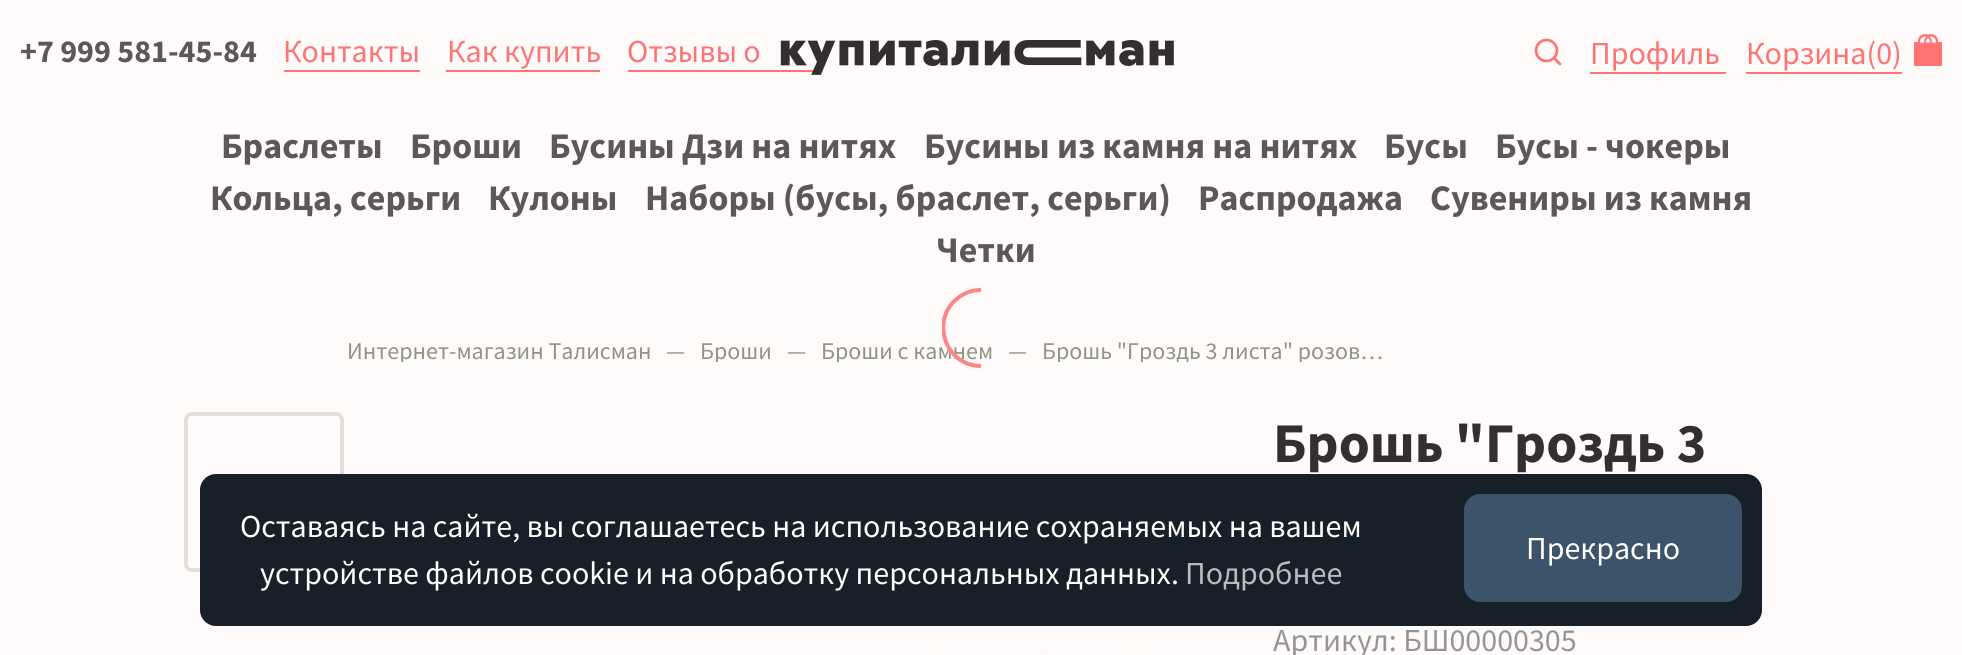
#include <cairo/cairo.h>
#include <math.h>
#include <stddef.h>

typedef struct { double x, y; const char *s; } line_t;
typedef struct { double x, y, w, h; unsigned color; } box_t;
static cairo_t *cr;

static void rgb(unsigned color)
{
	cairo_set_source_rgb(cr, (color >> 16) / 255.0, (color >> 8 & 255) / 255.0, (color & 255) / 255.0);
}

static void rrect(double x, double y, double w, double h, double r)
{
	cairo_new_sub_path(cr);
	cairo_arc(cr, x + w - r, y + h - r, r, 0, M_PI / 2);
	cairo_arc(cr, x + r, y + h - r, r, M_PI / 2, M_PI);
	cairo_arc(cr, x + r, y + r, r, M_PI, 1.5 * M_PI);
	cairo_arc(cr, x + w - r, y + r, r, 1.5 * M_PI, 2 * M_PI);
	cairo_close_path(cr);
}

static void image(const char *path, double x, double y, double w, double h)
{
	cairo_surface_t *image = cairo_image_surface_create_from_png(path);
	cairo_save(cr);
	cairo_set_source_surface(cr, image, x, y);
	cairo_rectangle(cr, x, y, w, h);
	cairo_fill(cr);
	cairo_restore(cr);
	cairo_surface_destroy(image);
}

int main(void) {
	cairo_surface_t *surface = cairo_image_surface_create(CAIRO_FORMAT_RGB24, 1962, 655);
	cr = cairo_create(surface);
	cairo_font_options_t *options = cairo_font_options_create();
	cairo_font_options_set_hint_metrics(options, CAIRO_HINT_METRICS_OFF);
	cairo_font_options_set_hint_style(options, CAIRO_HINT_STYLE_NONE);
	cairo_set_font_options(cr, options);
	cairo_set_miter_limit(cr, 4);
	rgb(0xfffbfb);
	cairo_paint(cr);
	{
		static const box_t items[] = {
			{284, 70, 136, 2, 0xff7373},
			{446, 70, 154, 2, 0xff7373},
			{628, 70, 188, 2, 0xff7373},
		};
		for (size_t i = 0; i < sizeof items / sizeof *items; i++) {
			rgb(items[i].color);
			cairo_rectangle(cr, items[i].x, items[i].y, items[i].w, items[i].h);
			cairo_fill(cr);
		}
	}
	image("img/1.png", 780, 40, 394, 35);
	cairo_arc(cr, 1546.5, 50.5, 10.5, 0, 2 * M_PI);
	cairo_set_line_width(cr, 2.7);
	cairo_stroke(cr);
	cairo_new_path(cr);
	cairo_move_to(cr, 1560, 64);
	cairo_line_to(cr, 1554, 58);
	cairo_set_line_cap(cr, CAIRO_LINE_CAP_ROUND);
	cairo_set_line_join(cr, CAIRO_LINE_JOIN_ROUND);
	cairo_stroke(cr);
	cairo_rectangle(cr, 1590, 72, 136, 2);
	cairo_fill(cr);
	cairo_rectangle(cr, 1746, 72, 156, 2);
	cairo_fill(cr);
	image("img/2.png", 1914, 34, 28, 32);
	rrect(186, 414, 156, 156, 6);
	rgb(0xe1e1dc);
	cairo_set_line_width(cr, 4);
	cairo_set_line_cap(cr, CAIRO_LINE_CAP_BUTT);
	cairo_set_line_join(cr, CAIRO_LINE_JOIN_MITER);
	cairo_stroke(cr);
	image("img/3.png", 204, 460, 120, 20);
	image("img/4.png", 451, 626, 693, 28);
	rgb(0x172029);
	rrect(200, 474, 1562, 152, 16);
	cairo_fill(cr);
	rgb(0x3c536a);
	rrect(1465, 495, 276, 106, 15);
	cairo_fill_preserve(cr);
	cairo_set_line_width(cr, 2);
	cairo_stroke(cr);
	cairo_select_font_face(cr, "Source Sans Pro", CAIRO_FONT_SLANT_NORMAL, CAIRO_FONT_WEIGHT_BOLD);
	cairo_set_font_size(cr, 32);
	rgb(0x5c5858);
	cairo_move_to(cr, 20, 62);
	cairo_show_text(cr, "+7 999 581-45-84");
	cairo_select_font_face(cr, "Source Sans Pro", CAIRO_FONT_SLANT_NORMAL, CAIRO_FONT_WEIGHT_NORMAL);
	rgb(0xff7373);
	{
		static const line_t items[] = {
			{283, 62, "Контакты"},
			{447, 62, "Как купить"},
			{627, 62, "Отзывы о"},
			{1590, 64, "Профиль"},
			{1746, 64, "Корзина(0)"},
		};
		for (size_t i = 0; i < sizeof items / sizeof *items; i++) {
			cairo_move_to(cr, items[i].x, items[i].y);
			cairo_show_text(cr, items[i].s);
		}
	}
	cairo_select_font_face(cr, "Source Sans Pro", CAIRO_FONT_SLANT_NORMAL, CAIRO_FONT_WEIGHT_BOLD);
	cairo_set_font_size(cr, 36);
	rgb(0x5c5858);
	{
		static const line_t items[] = {
			{221, 158, "Браслеты"},
			{410, 158, "Броши"},
			{549, 158, "Бусины Дзи на нитях"},
			{924, 158, "Бусины из камня на нитях"},
			{1384, 158, "Бусы"},
			{1495, 158, "Бусы - чокеры"},
			{210, 210, "Кольца, серьги"},
			{488, 210, "Кулоны"},
			{645, 210, "Наборы (бусы, браслет, серьги)"},
			{1198, 210, "Распродажа"},
			{1430, 210, "Сувениры из камня"},
			{936, 262, "Четки"},
		};
		for (size_t i = 0; i < sizeof items / sizeof *items; i++) {
			cairo_move_to(cr, items[i].x, items[i].y);
			cairo_show_text(cr, items[i].s);
		}
	}
	cairo_save(cr);
	cairo_rectangle(cr, 346, 336, 306, 26);
	cairo_clip(cr);
	cairo_select_font_face(cr, "Source Sans Pro", CAIRO_FONT_SLANT_NORMAL, CAIRO_FONT_WEIGHT_NORMAL);
	cairo_set_font_size(cr, 24);
	rgb(0x8d9684);
	cairo_move_to(cr, 347, 359);
	cairo_show_text(cr, "Интернет-магазин Талисман");
	cairo_restore(cr);
	cairo_select_font_face(cr, "Source Sans Pro", CAIRO_FONT_SLANT_NORMAL, CAIRO_FONT_WEIGHT_NORMAL);
	cairo_set_font_size(cr, 24);
	rgb(0x8d9684);
	cairo_move_to(cr, 666, 359);
	cairo_show_text(cr, "—");
	cairo_save(cr);
	cairo_rectangle(cr, 656, 336, 116, 26);
	cairo_clip(cr);
	cairo_move_to(cr, 700, 359);
	cairo_show_text(cr, "Броши");
	cairo_restore(cr);
	cairo_move_to(cr, 787, 359);
	cairo_show_text(cr, "—");
	cairo_save(cr);
	cairo_rectangle(cr, 776, 336, 218, 26);
	cairo_clip(cr);
	cairo_move_to(cr, 821, 359);
	cairo_show_text(cr, "Броши с камнем");
	cairo_restore(cr);
	cairo_save(cr);
	cairo_rectangle(cr, 942, 288, 40, 80);
	cairo_clip(cr);
	cairo_new_path(cr);
	cairo_move_to(cr, 981, 366);
	cairo_curve_to(cr, 944, 366, 929, 317, 960, 296.5);
	cairo_curve_to(cr, 966, 292, 973.5, 290, 981, 290);
	rgb(0xff8585);
	cairo_set_line_width(cr, 4);
	cairo_stroke(cr);
	cairo_restore(cr);
	cairo_move_to(cr, 1008, 359);
	cairo_show_text(cr, "—");
	cairo_save(cr);
	cairo_rectangle(cr, 998, 336, 400, 26);
	cairo_clip(cr);
	cairo_move_to(cr, 1042, 359);
	cairo_show_text(cr, "Брошь \"Гроздь 3 листа\" розов…");
	cairo_restore(cr);
	cairo_select_font_face(cr, "Source Sans Pro", CAIRO_FONT_SLANT_NORMAL, CAIRO_FONT_WEIGHT_BOLD);
	cairo_set_font_size(cr, 56);
	rgb(0x332f2f);
	cairo_move_to(cr, 1273, 462);
	cairo_show_text(cr, "Брошь \"Гроздь 3");
	cairo_select_font_face(cr, "Source Sans Pro", CAIRO_FONT_SLANT_NORMAL, CAIRO_FONT_WEIGHT_NORMAL);
	cairo_set_font_size(cr, 32);
	rgb(0x969495);
	cairo_move_to(cr, 1273, 651);
	cairo_show_text(cr, "Артикул: БШ00000305");
	rgb(0xffffff);
	{
		static const line_t items[] = {
			{240, 537, "Оставаясь на сайте, вы соглашаетесь на использование сохраняемых на вашем"},
			{1526, 559, "Прекрасно"},
			{260, 584, "устройстве файлов cookie и на обработку персональных данных."},
		};
		for (size_t i = 0; i < sizeof items / sizeof *items; i++) {
			cairo_move_to(cr, items[i].x, items[i].y);
			cairo_show_text(cr, items[i].s);
		}
	}
	rgb(0xb9bcbf);
	cairo_move_to(cr, 1185, 584);
	cairo_show_text(cr, "Подробнее");
	cairo_surface_write_to_png(surface, "page.png");
	cairo_font_options_destroy(options);
	cairo_destroy(cr);
	cairo_surface_destroy(surface);
	return 0;
}
